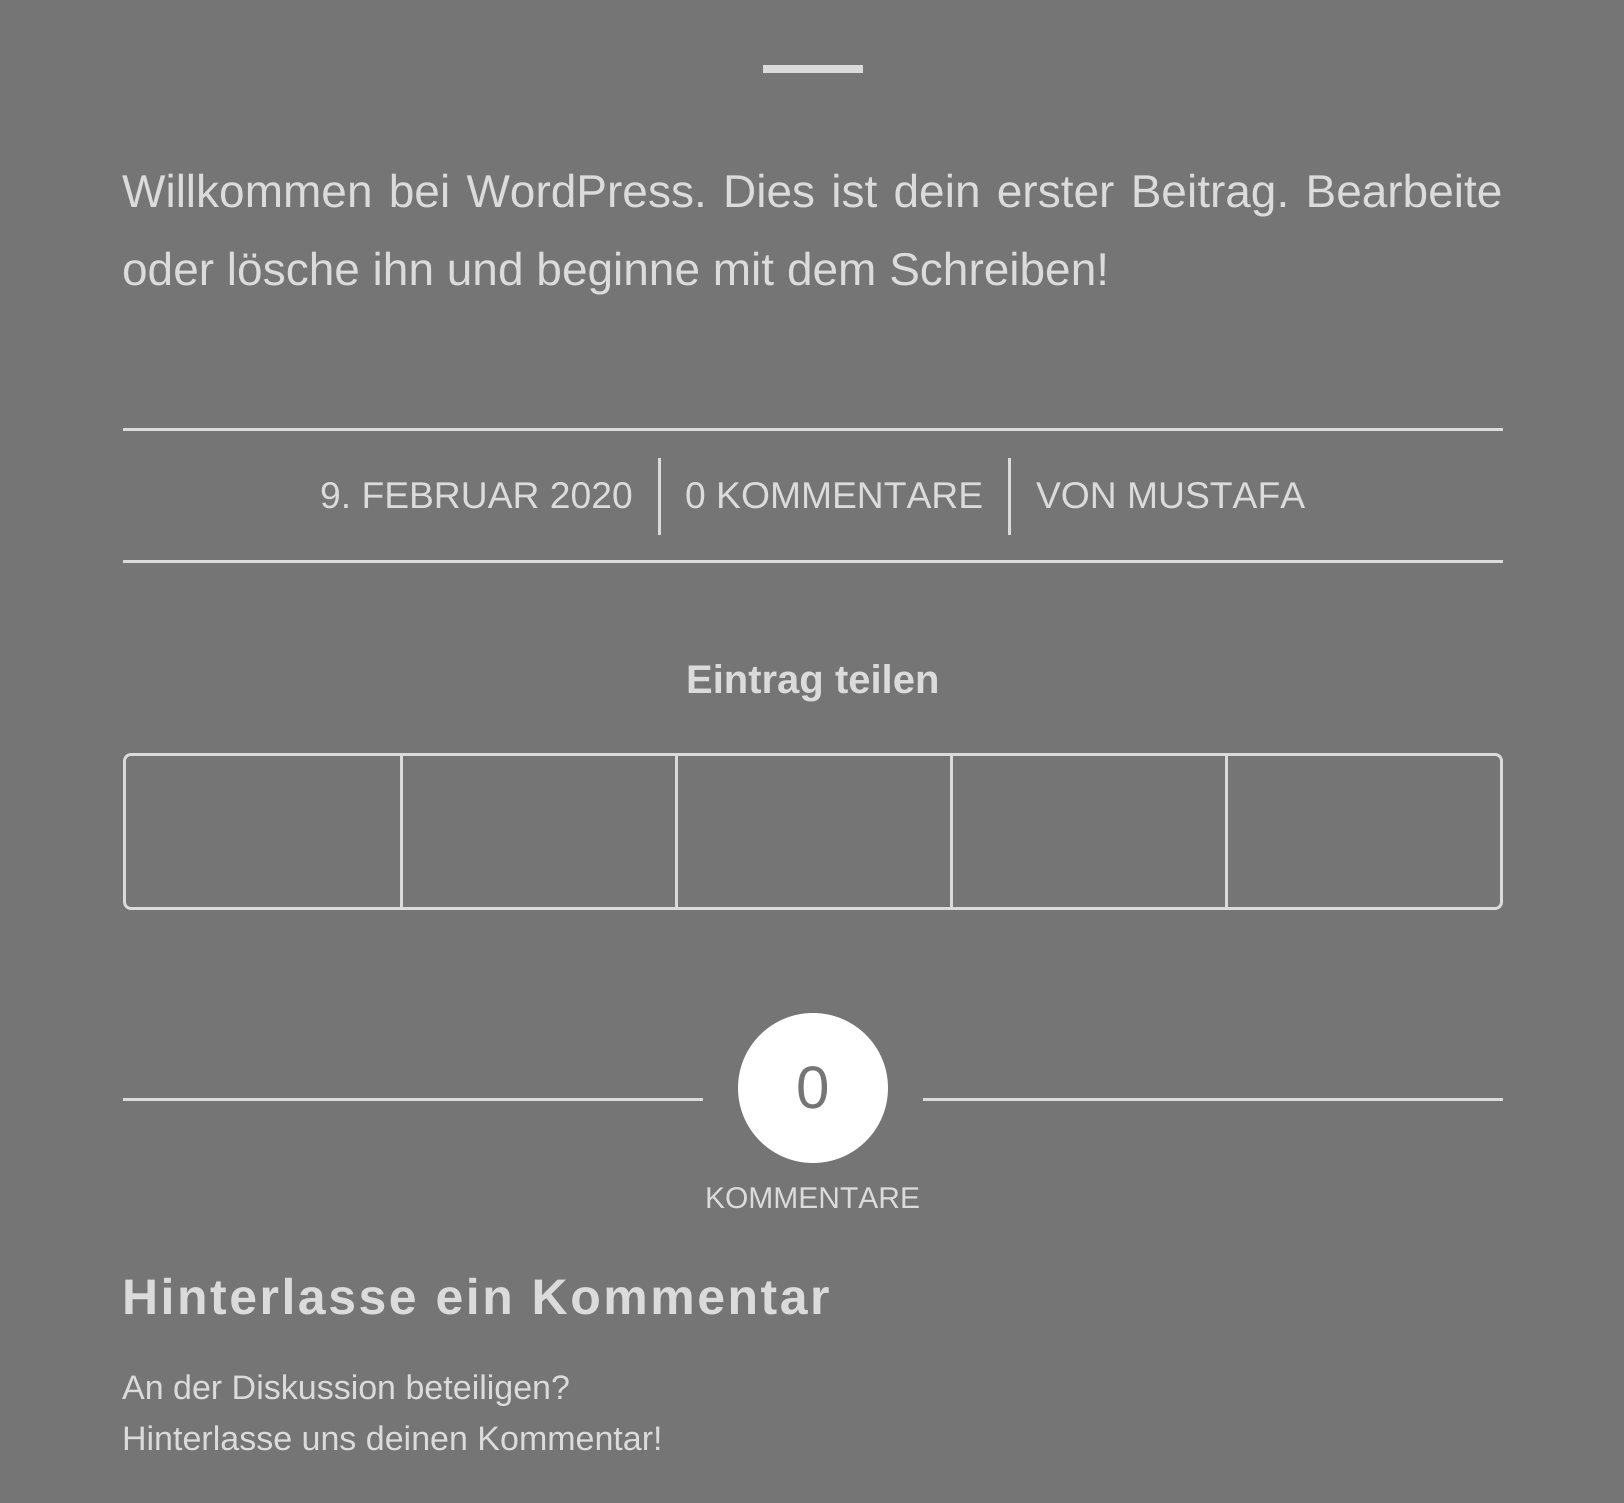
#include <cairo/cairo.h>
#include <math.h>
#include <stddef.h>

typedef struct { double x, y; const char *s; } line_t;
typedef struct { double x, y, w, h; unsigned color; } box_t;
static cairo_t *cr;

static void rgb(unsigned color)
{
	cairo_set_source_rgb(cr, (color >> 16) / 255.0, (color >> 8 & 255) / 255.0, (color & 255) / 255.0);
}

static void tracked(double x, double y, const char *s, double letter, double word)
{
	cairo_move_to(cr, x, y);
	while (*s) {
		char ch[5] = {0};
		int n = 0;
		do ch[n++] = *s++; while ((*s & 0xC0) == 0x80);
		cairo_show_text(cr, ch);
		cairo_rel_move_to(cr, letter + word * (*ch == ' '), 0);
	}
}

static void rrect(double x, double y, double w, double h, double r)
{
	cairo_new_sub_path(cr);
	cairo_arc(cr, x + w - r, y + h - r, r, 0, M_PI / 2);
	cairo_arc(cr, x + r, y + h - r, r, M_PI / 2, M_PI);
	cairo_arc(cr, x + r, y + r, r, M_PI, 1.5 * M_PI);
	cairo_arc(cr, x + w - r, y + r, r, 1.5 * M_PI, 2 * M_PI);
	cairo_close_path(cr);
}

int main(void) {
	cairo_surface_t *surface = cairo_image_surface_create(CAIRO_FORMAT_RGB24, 1624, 1503);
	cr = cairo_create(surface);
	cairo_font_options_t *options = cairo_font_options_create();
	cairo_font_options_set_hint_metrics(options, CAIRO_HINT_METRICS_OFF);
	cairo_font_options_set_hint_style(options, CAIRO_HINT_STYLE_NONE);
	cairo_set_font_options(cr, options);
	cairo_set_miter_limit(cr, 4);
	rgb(0x757575);
	cairo_paint(cr);
	{
		static const box_t items[] = {
			{763, 65, 100, 8, 0xdbdbdb},
			{123, 428, 1380, 3, 0xdbdbdb},
			{123, 560, 1380, 3, 0xdbdbdb},
			{658, 458, 3, 77, 0xdbdbdb},
			{1008, 458, 3, 77, 0xdbdbdb},
		};
		for (size_t i = 0; i < sizeof items / sizeof *items; i++) {
			rgb(items[i].color);
			cairo_rectangle(cr, items[i].x, items[i].y, items[i].w, items[i].h);
			cairo_fill(cr);
		}
	}
	rrect(124.5, 754.5, 1377, 154, 6.5);
	cairo_set_line_width(cr, 3);
	cairo_stroke(cr);
	{
		static const box_t items[] = {
			{400, 755, 3, 153, 0xdbdbdb},
			{675, 755, 3, 153, 0xdbdbdb},
			{950, 755, 3, 153, 0xdbdbdb},
			{1225, 755, 3, 153, 0xdbdbdb},
			{123, 1098, 580, 3, 0xdbdbdb},
		};
		for (size_t i = 0; i < sizeof items / sizeof *items; i++) {
			rgb(items[i].color);
			cairo_rectangle(cr, items[i].x, items[i].y, items[i].w, items[i].h);
			cairo_fill(cr);
		}
	}
	rgb(0xffffff);
	cairo_arc(cr, 813, 1088, 75, 0, 2 * M_PI);
	cairo_fill(cr);
	rgb(0xdbdbdb);
	cairo_rectangle(cr, 923, 1098, 580, 3);
	cairo_fill(cr);
	cairo_select_font_face(cr, "Liberation Sans", CAIRO_FONT_SLANT_NORMAL, CAIRO_FONT_WEIGHT_NORMAL);
	cairo_set_font_size(cr, 46);
	tracked(122, 207, "Willkommen bei WordPress. Dies ist dein erster Beitrag. Bearbeite", 0, 3.5);
	cairo_move_to(cr, 122, 285);
	cairo_show_text(cr, "oder lösche ihn und beginne mit dem Schreiben!");
	cairo_set_font_size(cr, 37.25);
	{
		static const line_t items[] = {
			{320, 508, "9. FEBRUAR 2020"},
			{685, 508, "0 KOMMENTARE"},
			{1036, 508, "VON MUSTAFA"},
		};
		for (size_t i = 0; i < sizeof items / sizeof *items; i++) {
			cairo_move_to(cr, items[i].x, items[i].y);
			cairo_show_text(cr, items[i].s);
		}
	}
	cairo_select_font_face(cr, "Liberation Sans", CAIRO_FONT_SLANT_NORMAL, CAIRO_FONT_WEIGHT_BOLD);
	cairo_set_font_size(cr, 40);
	cairo_move_to(cr, 686, 693);
	cairo_show_text(cr, "Eintrag teilen");
	cairo_select_font_face(cr, "Liberation Sans", CAIRO_FONT_SLANT_NORMAL, CAIRO_FONT_WEIGHT_NORMAL);
	cairo_set_font_size(cr, 60);
	rgb(0x757575);
	cairo_move_to(cr, 796, 1108);
	cairo_show_text(cr, "0");
	cairo_set_font_size(cr, 30);
	rgb(0xdbdbdb);
	cairo_move_to(cr, 705, 1208);
	cairo_show_text(cr, "KOMMENTARE");
	cairo_select_font_face(cr, "Liberation Sans", CAIRO_FONT_SLANT_NORMAL, CAIRO_FONT_WEIGHT_BOLD);
	cairo_set_font_size(cr, 50);
	tracked(122, 1314, "Hinterlasse ein Kommentar", 2.5, 0);
	cairo_select_font_face(cr, "Liberation Sans", CAIRO_FONT_SLANT_NORMAL, CAIRO_FONT_WEIGHT_NORMAL);
	cairo_set_font_size(cr, 34);
	cairo_move_to(cr, 122, 1399);
	cairo_show_text(cr, "An der Diskussion beteiligen?");
	cairo_move_to(cr, 122, 1450);
	cairo_show_text(cr, "Hinterlasse uns deinen Kommentar!");
	cairo_surface_write_to_png(surface, "page.png");
	cairo_font_options_destroy(options);
	cairo_destroy(cr);
	cairo_surface_destroy(surface);
	return 0;
}
